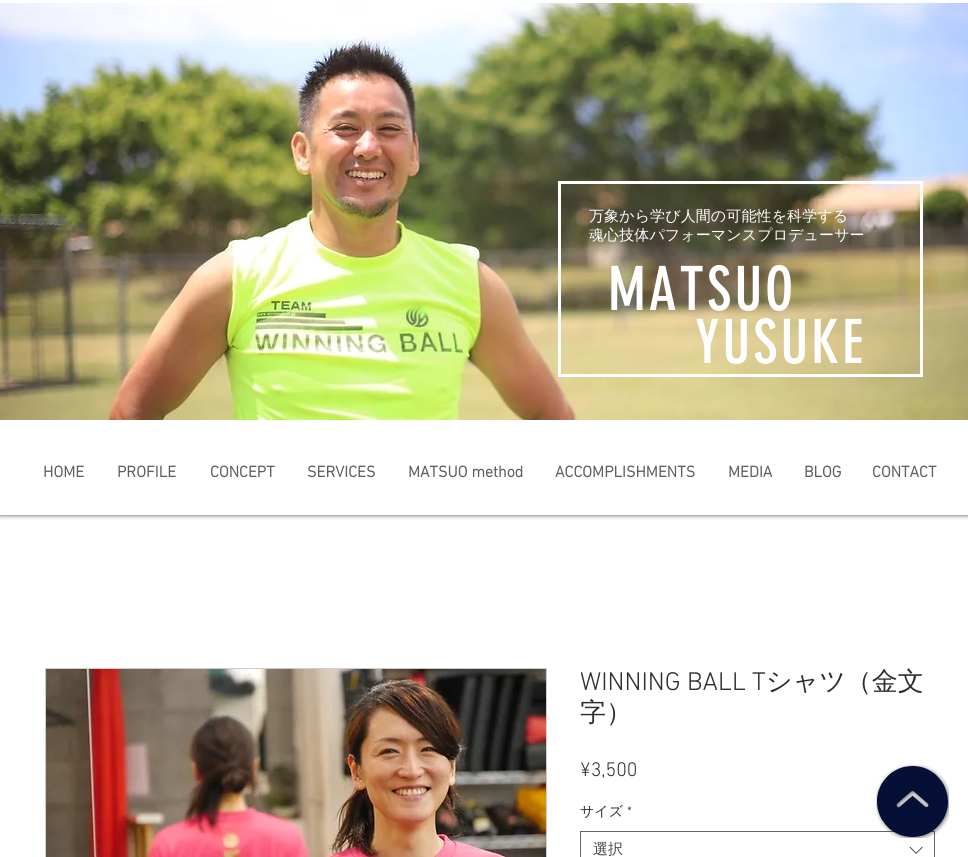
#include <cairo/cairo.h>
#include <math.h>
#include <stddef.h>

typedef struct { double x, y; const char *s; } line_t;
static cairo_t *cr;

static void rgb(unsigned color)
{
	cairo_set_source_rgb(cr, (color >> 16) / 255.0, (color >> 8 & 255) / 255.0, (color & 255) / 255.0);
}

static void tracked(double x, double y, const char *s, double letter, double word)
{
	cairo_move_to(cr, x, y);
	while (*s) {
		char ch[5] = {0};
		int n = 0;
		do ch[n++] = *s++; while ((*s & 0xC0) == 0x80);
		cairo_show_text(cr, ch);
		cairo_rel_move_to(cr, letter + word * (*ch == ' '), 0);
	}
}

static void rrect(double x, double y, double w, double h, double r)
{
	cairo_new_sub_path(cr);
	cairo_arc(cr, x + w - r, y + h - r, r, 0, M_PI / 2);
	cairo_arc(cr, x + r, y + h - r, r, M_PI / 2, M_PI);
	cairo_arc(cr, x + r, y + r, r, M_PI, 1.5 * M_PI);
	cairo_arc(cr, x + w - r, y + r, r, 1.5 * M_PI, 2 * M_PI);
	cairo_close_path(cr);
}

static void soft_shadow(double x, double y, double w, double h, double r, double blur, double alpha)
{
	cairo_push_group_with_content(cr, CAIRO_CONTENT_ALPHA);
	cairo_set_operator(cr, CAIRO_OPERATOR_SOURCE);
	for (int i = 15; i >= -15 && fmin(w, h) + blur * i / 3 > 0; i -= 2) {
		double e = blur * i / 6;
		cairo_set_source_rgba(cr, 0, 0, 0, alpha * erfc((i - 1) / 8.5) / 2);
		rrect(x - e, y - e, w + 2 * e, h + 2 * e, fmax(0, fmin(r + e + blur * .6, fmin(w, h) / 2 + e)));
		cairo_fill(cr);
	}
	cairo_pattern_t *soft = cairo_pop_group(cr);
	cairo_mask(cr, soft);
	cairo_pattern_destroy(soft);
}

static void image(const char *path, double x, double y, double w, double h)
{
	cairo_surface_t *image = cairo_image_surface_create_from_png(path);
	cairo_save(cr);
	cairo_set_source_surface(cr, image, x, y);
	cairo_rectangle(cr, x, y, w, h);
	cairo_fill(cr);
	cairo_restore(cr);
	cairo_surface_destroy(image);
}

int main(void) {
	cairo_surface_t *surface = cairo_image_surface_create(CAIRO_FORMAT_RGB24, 968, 857);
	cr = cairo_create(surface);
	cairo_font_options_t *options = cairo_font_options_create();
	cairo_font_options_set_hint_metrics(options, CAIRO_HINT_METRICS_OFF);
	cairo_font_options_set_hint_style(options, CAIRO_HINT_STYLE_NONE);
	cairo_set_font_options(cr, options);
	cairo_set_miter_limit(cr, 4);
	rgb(0xffffff);
	cairo_paint(cr);
	cairo_save(cr);
	cairo_rectangle(cr, 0, 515, 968, 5);
	cairo_clip(cr);
	rgb(0x000000);
	soft_shadow(0, 0, 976, 515, 0, 2.5, 0.7);
	cairo_restore(cr);
	image("img/1.png", 0, 3, 968, 417);
	cairo_rectangle(cr, 559.5, 182.5, 362, 193);
	rgb(0xffffff);
	cairo_set_line_width(cr, 3);
	cairo_stroke(cr);
	cairo_rectangle(cr, 45.5, 668.5, 501, 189);
	rgb(0xcccccc);
	cairo_set_line_width(cr, 1);
	cairo_stroke(cr);
	image("img/2.png", 46, 669, 500, 188);
	cairo_rectangle(cr, 580.5, 831.5, 354, 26);
	rgb(0x666666);
	cairo_stroke(cr);
	image("img/3.png", 909, 846, 14, 8);
	image("img/4.png", 876, 765, 73, 73);
	cairo_select_font_face(cr, "WenQuanYi Zen Hei Medium", CAIRO_FONT_SLANT_NORMAL, CAIRO_FONT_WEIGHT_NORMAL);
	cairo_set_font_size(cr, 15);
	rgb(0xffffff);
	tracked(589, 221, "万象から学び人間の可能性を科学する", 0.1, 0);
	tracked(589, 240, "魂心技体パフォーマンスプロデューサー", 0.1, 0);
	cairo_select_font_face(cr, "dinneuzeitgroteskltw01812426", CAIRO_FONT_SLANT_NORMAL, CAIRO_FONT_WEIGHT_NORMAL);
	cairo_set_font_size(cr, 60);
	tracked(608, 310, "MATSUO", 3, 0);
	tracked(695, 363, "YUSUKE", 3, 0);
	cairo_select_font_face(cr, "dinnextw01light", CAIRO_FONT_SLANT_NORMAL, CAIRO_FONT_WEIGHT_BOLD);
	cairo_set_font_size(cr, 16);
	rgb(0x605e5e);
	{
		static const line_t items[] = {
			{43, 477, "HOME"},
			{117, 477, "PROFILE"},
			{210, 477, "CONCEPT"},
			{307, 477, "SERVICES"},
			{408, 477, "MATSUO method"},
			{555, 477, "ACCOMPLISHMENTS"},
			{728, 477, "MEDIA"},
			{804, 477, "BLOG"},
			{872, 477, "CONTACT"},
		};
		for (size_t i = 0; i < sizeof items / sizeof *items; i++) {
			cairo_move_to(cr, items[i].x, items[i].y);
			cairo_show_text(cr, items[i].s);
		}
	}
	cairo_select_font_face(cr, "dinnextw01light Light", CAIRO_FONT_SLANT_NORMAL, CAIRO_FONT_WEIGHT_NORMAL);
	cairo_set_font_size(cr, 26);
	rgb(0x2f2e2e);
	cairo_move_to(cr, 580, 690);
	cairo_show_text(cr, "WINNING BALL T");
	cairo_select_font_face(cr, "WenQuanYi Zen Hei Medium", CAIRO_FONT_SLANT_NORMAL, CAIRO_FONT_WEIGHT_NORMAL);
	cairo_move_to(cr, 766, 690);
	cairo_show_text(cr, "シャツ（金文");
	cairo_move_to(cr, 580, 721);
	cairo_show_text(cr, "字）");
	cairo_select_font_face(cr, "dinnextw01light Light", CAIRO_FONT_SLANT_NORMAL, CAIRO_FONT_WEIGHT_NORMAL);
	cairo_set_font_size(cr, 20);
	cairo_move_to(cr, 580, 776);
	cairo_show_text(cr, "¥3,500");
	cairo_select_font_face(cr, "WenQuanYi Zen Hei Medium", CAIRO_FONT_SLANT_NORMAL, CAIRO_FONT_WEIGHT_NORMAL);
	cairo_set_font_size(cr, 14);
	cairo_move_to(cr, 580, 816);
	cairo_show_text(cr, "サイズ");
	cairo_select_font_face(cr, "dinnextw01light Light", CAIRO_FONT_SLANT_NORMAL, CAIRO_FONT_WEIGHT_NORMAL);
	cairo_move_to(cr, 627, 816);
	cairo_show_text(cr, "*");
	cairo_select_font_face(cr, "WenQuanYi Zen Hei Medium", CAIRO_FONT_SLANT_NORMAL, CAIRO_FONT_WEIGHT_NORMAL);
	cairo_set_font_size(cr, 15);
	rgb(0x444444);
	cairo_move_to(cr, 593, 854);
	cairo_show_text(cr, "選択");
	cairo_surface_write_to_png(surface, "page.png");
	cairo_font_options_destroy(options);
	cairo_destroy(cr);
	cairo_surface_destroy(surface);
	return 0;
}
